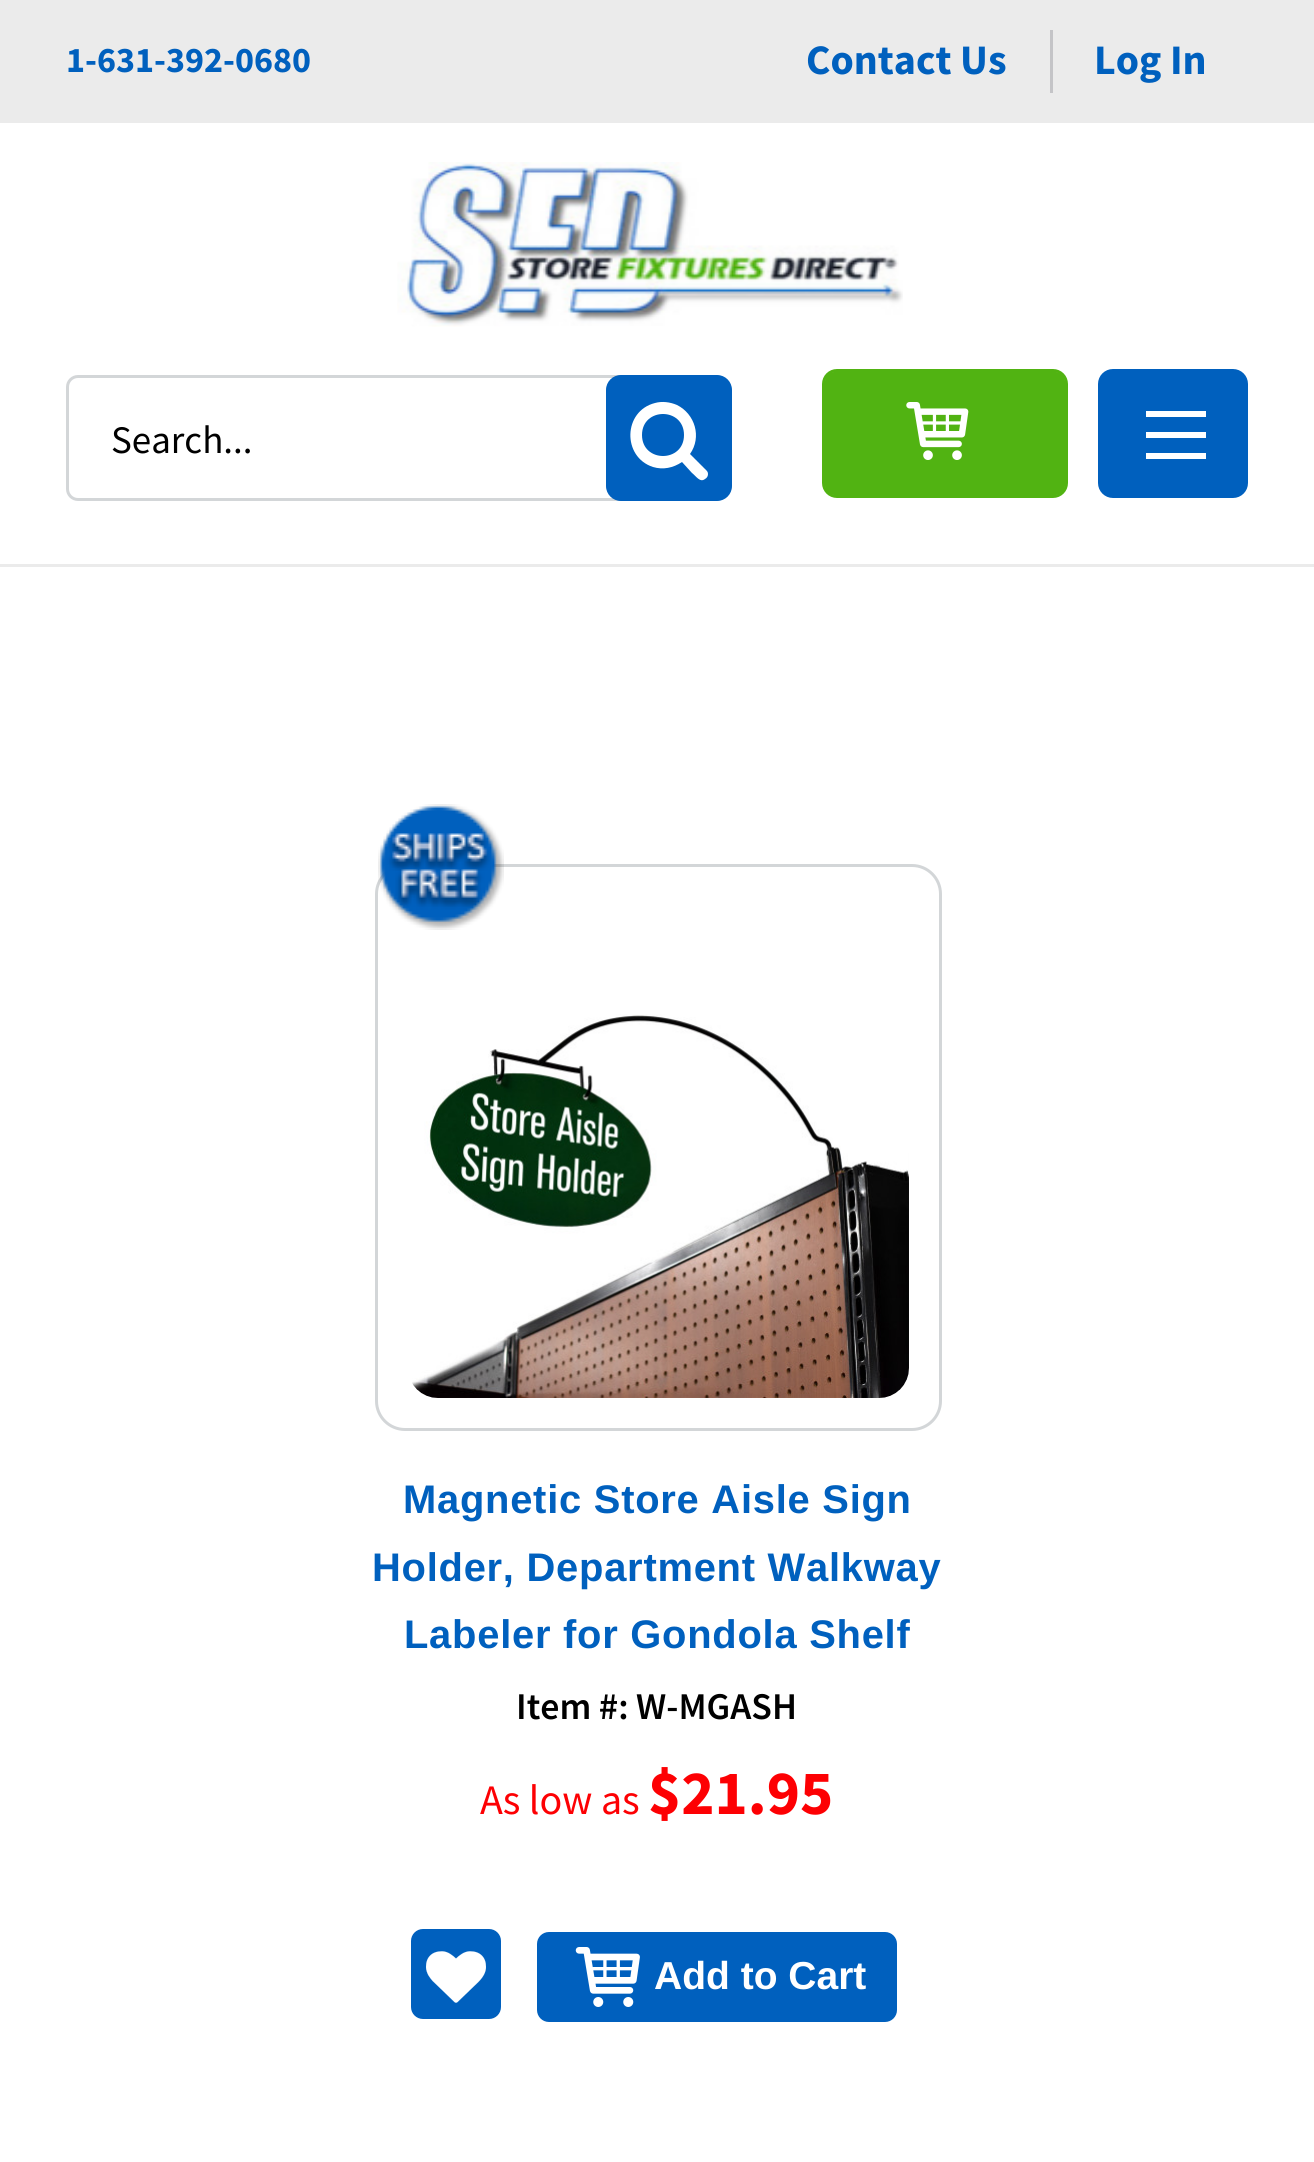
#include <cairo/cairo.h>
#include <math.h>
#include <stddef.h>

typedef struct { double x, y; const char *s; } line_t;
typedef struct { double x, y, w, h; unsigned color; } box_t;
static cairo_t *cr;

static void rgb(unsigned color)
{
	cairo_set_source_rgb(cr, (color >> 16) / 255.0, (color >> 8 & 255) / 255.0, (color & 255) / 255.0);
}

static void tracked(double x, double y, const char *s, double letter, double word)
{
	cairo_move_to(cr, x, y);
	while (*s) {
		char ch[5] = {0};
		int n = 0;
		do ch[n++] = *s++; while ((*s & 0xC0) == 0x80);
		cairo_show_text(cr, ch);
		cairo_rel_move_to(cr, letter + word * (*ch == ' '), 0);
	}
}

static void rrect(double x, double y, double w, double h, double r)
{
	cairo_new_sub_path(cr);
	cairo_arc(cr, x + w - r, y + h - r, r, 0, M_PI / 2);
	cairo_arc(cr, x + r, y + h - r, r, M_PI / 2, M_PI);
	cairo_arc(cr, x + r, y + r, r, M_PI, 1.5 * M_PI);
	cairo_arc(cr, x + w - r, y + r, r, 1.5 * M_PI, 2 * M_PI);
	cairo_close_path(cr);
}

static void image(const char *path, double x, double y, double w, double h)
{
	cairo_surface_t *image = cairo_image_surface_create_from_png(path);
	cairo_save(cr);
	cairo_set_source_surface(cr, image, x, y);
	cairo_rectangle(cr, x, y, w, h);
	cairo_fill(cr);
	cairo_restore(cr);
	cairo_surface_destroy(image);
}

int main(void) {
	cairo_surface_t *surface = cairo_image_surface_create(CAIRO_FORMAT_RGB24, 1314, 2162);
	cr = cairo_create(surface);
	cairo_font_options_t *options = cairo_font_options_create();
	cairo_font_options_set_hint_metrics(options, CAIRO_HINT_METRICS_OFF);
	cairo_font_options_set_hint_style(options, CAIRO_HINT_STYLE_NONE);
	cairo_set_font_options(cr, options);
	cairo_set_miter_limit(cr, 4);
	rgb(0xffffff);
	cairo_paint(cr);
	{
		static const box_t items[] = {
			{0, 564, 1314, 3, 0xebebeb},
			{0, 0, 1314, 123, 0xebebeb},
			{1050, 30, 3, 63, 0xc4c4c7},
		};
		for (size_t i = 0; i < sizeof items / sizeof *items; i++) {
			rgb(items[i].color);
			cairo_rectangle(cr, items[i].x, items[i].y, items[i].w, items[i].h);
			cairo_fill(cr);
		}
	}
	image("img/1.png", 397, 162, 506, 165);
	rrect(67.5, 376.5, 654, 123, 10.5);
	rgb(0xd3d6d8);
	cairo_set_line_width(cr, 3);
	cairo_stroke(cr);
	rgb(0x0060be);
	rrect(606, 375, 126, 126, 15);
	cairo_fill(cr);
	rgb(0xffffff);
	cairo_new_path(cr);
	cairo_move_to(cr, 684, 435);
	cairo_curve_to(cr, 684, 407, 642, 407, 642, 435);
	cairo_curve_to(cr, 642, 463, 684, 463, 684, 435);
	cairo_close_path(cr);
	cairo_move_to(cr, 708, 474);
	cairo_curve_to(cr, 708, 476, 707, 478, 705, 479);
	cairo_curve_to(cr, 700, 483, 696, 476, 692, 473);
	cairo_line_to(cr, 682, 462);
	cairo_curve_to(cr, 673, 468, 663, 470, 653, 467);
	cairo_curve_to(cr, 622, 457, 623, 411, 655, 403);
	cairo_curve_to(cr, 662, 401, 670, 402, 677, 405);
	cairo_curve_to(cr, 695, 414, 702, 437, 690, 454);
	cairo_line_to(cr, 706, 470);
	cairo_curve_to(cr, 707, 471, 708, 472, 708, 474);
	cairo_close_path(cr);
	cairo_fill(cr);
	rrect(823.5, 370.5, 243, 126, 13.5);
	rgb(0x51b312);
	cairo_stroke(cr);
	rrect(825, 372, 240, 123, 9);
	cairo_fill(cr);
	image("img/2.png", 906, 402, 63, 58);
	rgb(0x0060be);
	rrect(1099.5, 370.5, 147, 126, 13.5);
	cairo_fill_preserve(cr);
	cairo_stroke(cr);
	{
		static const box_t items[] = {
			{1146, 432, 60, 6, 0xffffff},
			{1146, 411, 60, 6, 0xffffff},
			{1146, 453, 60, 6, 0xffffff},
		};
		for (size_t i = 0; i < sizeof items / sizeof *items; i++) {
			rgb(items[i].color);
			cairo_rectangle(cr, items[i].x, items[i].y, items[i].w, items[i].h);
			cairo_fill(cr);
		}
	}
	rrect(376.5, 865.5, 564, 564, 28.5);
	rgb(0xd3d6d8);
	cairo_stroke(cr);
	image("img/3.png", 378, 804, 126, 126);
	image("img/4.png", 412, 1014, 497, 384);
	rgb(0x0060be);
	rrect(412.5, 1930.5, 87, 87, 10.5);
	cairo_fill_preserve(cr);
	cairo_stroke(cr);
	image("img/5.png", 426, 1951, 60, 52);
	rrect(538.5, 1933.5, 357, 87, 10.5);
	cairo_fill_preserve(cr);
	cairo_stroke(cr);
	image("img/6.png", 575, 1947, 65, 60);
	cairo_select_font_face(cr, "Source Sans Pro", CAIRO_FONT_SLANT_NORMAL, CAIRO_FONT_WEIGHT_BOLD);
	cairo_set_font_size(cr, 36);
	cairo_move_to(cr, 66, 72);
	cairo_show_text(cr, "1-631-392-0680");
	cairo_set_font_size(cr, 42);
	cairo_move_to(cr, 806, 74);
	cairo_show_text(cr, "Contact Us");
	cairo_move_to(cr, 1094, 74);
	cairo_show_text(cr, "Log In");
	cairo_select_font_face(cr, "Source Sans Pro", CAIRO_FONT_SLANT_NORMAL, CAIRO_FONT_WEIGHT_NORMAL);
	cairo_set_font_size(cr, 39);
	rgb(0x000000);
	cairo_move_to(cr, 111, 453);
	cairo_show_text(cr, "Search...");
	cairo_select_font_face(cr, "Liberation Sans", CAIRO_FONT_SLANT_NORMAL, CAIRO_FONT_WEIGHT_BOLD);
	cairo_set_font_size(cr, 39.9);
	rgb(0x0060be);
	{
		static const line_t items[] = {
			{403, 1513, "Magnetic Store Aisle Sign"},
			{372, 1581, "Holder, Department Walkway"},
			{404, 1648, "Labeler for Gondola Shelf"},
		};
		for (size_t i = 0; i < sizeof items / sizeof *items; i++) {
			tracked(items[i].x, items[i].y, items[i].s, 0.75, 0);
		}
	}
	cairo_select_font_face(cr, "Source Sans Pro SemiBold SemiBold", CAIRO_FONT_SLANT_NORMAL, CAIRO_FONT_WEIGHT_NORMAL);
	cairo_set_font_size(cr, 37.75);
	rgb(0x000000);
	cairo_move_to(cr, 516, 1719);
	cairo_show_text(cr, "Item #: W-MGASH");
	cairo_select_font_face(cr, "Source Sans Pro", CAIRO_FONT_SLANT_NORMAL, CAIRO_FONT_WEIGHT_NORMAL);
	cairo_set_font_size(cr, 42);
	rgb(0xfd0003);
	cairo_move_to(cr, 480, 1814);
	cairo_show_text(cr, "As low as");
	cairo_select_font_face(cr, "Source Sans Pro", CAIRO_FONT_SLANT_NORMAL, CAIRO_FONT_WEIGHT_BOLD);
	cairo_set_font_size(cr, 63);
	cairo_move_to(cr, 648, 1814);
	cairo_show_text(cr, "$21.95");
	cairo_select_font_face(cr, "Liberation Sans", CAIRO_FONT_SLANT_NORMAL, CAIRO_FONT_WEIGHT_BOLD);
	cairo_set_font_size(cr, 39);
	rgb(0xffffff);
	cairo_move_to(cr, 654, 1989);
	cairo_show_text(cr, "Add to Cart");
	cairo_surface_write_to_png(surface, "page.png");
	cairo_font_options_destroy(options);
	cairo_destroy(cr);
	cairo_surface_destroy(surface);
	return 0;
}
